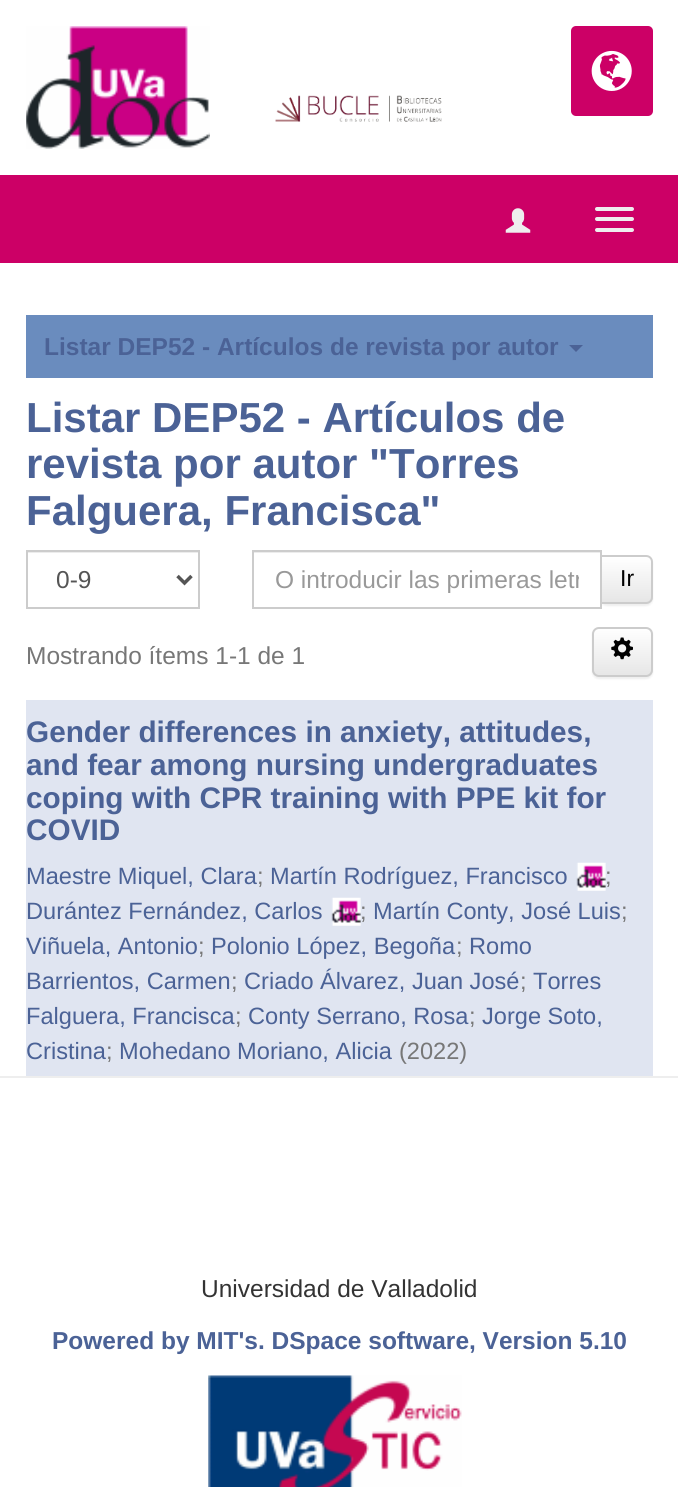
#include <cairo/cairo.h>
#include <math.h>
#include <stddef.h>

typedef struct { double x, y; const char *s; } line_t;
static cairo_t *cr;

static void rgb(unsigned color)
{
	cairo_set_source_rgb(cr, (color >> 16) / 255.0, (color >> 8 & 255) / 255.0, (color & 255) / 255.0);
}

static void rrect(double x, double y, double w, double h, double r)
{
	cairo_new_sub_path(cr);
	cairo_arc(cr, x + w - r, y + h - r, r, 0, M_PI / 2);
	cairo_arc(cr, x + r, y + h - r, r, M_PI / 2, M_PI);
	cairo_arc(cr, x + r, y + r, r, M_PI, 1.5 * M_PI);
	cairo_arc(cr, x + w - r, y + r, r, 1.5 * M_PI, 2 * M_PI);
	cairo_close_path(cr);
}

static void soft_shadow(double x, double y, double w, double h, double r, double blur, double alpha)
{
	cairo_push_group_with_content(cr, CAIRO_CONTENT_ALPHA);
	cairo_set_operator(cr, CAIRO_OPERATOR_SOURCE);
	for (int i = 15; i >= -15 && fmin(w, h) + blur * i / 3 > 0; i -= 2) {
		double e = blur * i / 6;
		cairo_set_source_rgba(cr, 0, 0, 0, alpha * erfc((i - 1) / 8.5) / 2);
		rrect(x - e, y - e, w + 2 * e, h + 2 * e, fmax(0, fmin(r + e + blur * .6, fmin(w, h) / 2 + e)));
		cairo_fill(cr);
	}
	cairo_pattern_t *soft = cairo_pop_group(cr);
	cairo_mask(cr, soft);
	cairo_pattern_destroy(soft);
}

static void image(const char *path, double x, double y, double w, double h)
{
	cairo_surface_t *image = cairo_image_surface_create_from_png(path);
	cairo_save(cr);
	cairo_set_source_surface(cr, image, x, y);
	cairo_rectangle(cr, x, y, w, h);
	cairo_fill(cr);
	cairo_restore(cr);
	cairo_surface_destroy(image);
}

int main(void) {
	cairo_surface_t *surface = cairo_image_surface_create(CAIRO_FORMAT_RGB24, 678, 1487);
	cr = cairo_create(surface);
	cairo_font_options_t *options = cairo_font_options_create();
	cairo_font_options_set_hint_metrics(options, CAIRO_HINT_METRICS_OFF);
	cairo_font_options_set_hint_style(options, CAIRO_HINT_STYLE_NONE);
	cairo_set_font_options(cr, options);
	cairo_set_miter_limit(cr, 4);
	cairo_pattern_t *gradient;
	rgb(0xffffff);
	cairo_paint(cr);
	image("img/1.png", 26, 26, 184, 123);
	image("img/2.png", 275, 95, 167, 27);
	rgb(0xcc0066);
	rrect(571, 26, 82, 90, 5);
	cairo_fill(cr);
	image("img/3.png", 591, 50, 41, 41);
	cairo_rectangle(cr, 0, 175, 678, 88);
	cairo_fill(cr);
	image("img/4.png", 505, 208, 26, 25);
	rgb(0xeeeeee);
	rrect(595, 207, 39, 4, 2);
	cairo_fill(cr);
	rrect(595, 217, 39, 4, 2);
	cairo_fill(cr);
	rrect(595, 228, 39, 4, 2);
	cairo_fill(cr);
	rgb(0x6a8cbe);
	cairo_rectangle(cr, 26, 315, 627, 63);
	cairo_fill(cr);
	rgb(0x4b6296);
	cairo_new_path(cr);
	cairo_move_to(cr, 569, 345);
	cairo_line_to(cr, 583, 345);
	cairo_line_to(cr, 576, 352);
	cairo_close_path(cr);
	cairo_fill(cr);
	rgb(0xececec);
	cairo_rectangle(cr, 28, 552, 170, 1);
	cairo_fill(cr);
	cairo_rectangle(cr, 27, 551, 172, 57);
	rgb(0xcccccc);
	cairo_stroke(cr);
	cairo_new_path(cr);
	cairo_move_to(cr, 177.5, 576);
	cairo_line_to(cr, 184.5, 583);
	cairo_line_to(cr, 191.5, 576);
	rgb(0x555555);
	cairo_set_line_width(cr, 3.5);
	cairo_stroke(cr);
	rgb(0x000000);
	soft_shadow(600, 557, 53, 49, 7, 1, 0.07);
	rgb(0xffffff);
	cairo_rectangle(cr, 599, 561, 1, 41);
	cairo_fill(cr);
	rgb(0xececec);
	cairo_rectangle(cr, 254, 552, 346, 1);
	cairo_fill(cr);
	cairo_save(cr);
	cairo_new_path(cr);
	cairo_move_to(cr, 600, 555);
	cairo_line_to(cr, 646, 555);
	cairo_curve_to(cr, 650, 555, 653, 558, 653, 562);
	cairo_line_to(cr, 653, 597);
	cairo_curve_to(cr, 653, 601, 650, 604, 646, 604);
	cairo_line_to(cr, 600, 604);
	cairo_close_path(cr);
	cairo_clip(cr);
	gradient = cairo_pattern_create_linear(627, 557, 627, 602);
	cairo_pattern_add_color_stop_rgba(gradient, 0, 1, 1, 1, 1);
	cairo_pattern_add_color_stop_rgba(gradient, 1, 0.902, 0.902, 0.902, 1);
	cairo_set_source(cr, gradient);
	cairo_pattern_destroy(gradient);
	cairo_rectangle(cr, 602, 557, 51, 45);
	cairo_fill(cr);
	cairo_restore(cr);
	cairo_new_path(cr);
	cairo_move_to(cr, 601, 556);
	cairo_line_to(cr, 646, 556);
	cairo_curve_to(cr, 649.5, 556, 652, 558.5, 652, 562);
	cairo_line_to(cr, 652, 597);
	cairo_curve_to(cr, 652, 600.5, 649.5, 603, 646, 603);
	cairo_line_to(cr, 601, 603);
	cairo_close_path(cr);
	rgb(0xcccccc);
	cairo_set_line_width(cr, 2);
	cairo_stroke(cr);
	cairo_rectangle(cr, 253, 551, 348, 57);
	cairo_stroke(cr);
	rgb(0x000000);
	soft_shadow(592, 628, 61, 51, 7, 1, 0.07);
	cairo_save(cr);
	rrect(592, 627, 61, 50, 7);
	cairo_clip(cr);
	gradient = cairo_pattern_create_linear(622, 628, 622, 676);
	cairo_pattern_add_color_stop_rgba(gradient, 0, 1, 1, 1, 1);
	cairo_pattern_add_color_stop_rgba(gradient, 1, 0.902, 0.902, 0.902, 1);
	cairo_set_source(cr, gradient);
	cairo_pattern_destroy(gradient);
	cairo_rectangle(cr, 592, 628, 61, 48);
	cairo_fill(cr);
	cairo_restore(cr);
	rrect(593, 628, 59, 48, 6);
	rgb(0xcccccc);
	cairo_stroke(cr);
	image("img/5.png", 611, 637, 22, 23);
	rgb(0xe0e5f1);
	cairo_rectangle(cr, 26, 700, 627, 376);
	cairo_fill(cr);
	rgb(0xeeeeee);
	cairo_rectangle(cr, 0, 1076, 678, 2);
	cairo_fill(cr);
	image("img/6.png", 576, 862, 30, 29);
	image("img/7.png", 331, 897, 30, 29);
	image("img/8.png", 208, 1375, 254, 112);
	cairo_select_font_face(cr, "Liberation Sans", CAIRO_FONT_SLANT_NORMAL, CAIRO_FONT_WEIGHT_BOLD);
	cairo_set_font_size(cr, 24.5);
	rgb(0x4b6296);
	cairo_move_to(cr, 44, 355);
	cairo_show_text(cr, "Listar DEP52 - Artículos de revista por autor");
	cairo_set_font_size(cr, 42);
	{
		static const line_t items[] = {
			{26, 432, "Listar DEP52 - Artículos de"},
			{26, 478, "revista por autor \"Torres"},
			{26, 525, "Falguera, Francisca\""},
		};
		for (size_t i = 0; i < sizeof items / sizeof *items; i++) {
			cairo_move_to(cr, items[i].x, items[i].y);
			cairo_show_text(cr, items[i].s);
		}
	}
	cairo_select_font_face(cr, "Liberation Sans", CAIRO_FONT_SLANT_NORMAL, CAIRO_FONT_WEIGHT_NORMAL);
	cairo_set_font_size(cr, 24.5);
	rgb(0x555555);
	cairo_move_to(cr, 56, 588);
	cairo_show_text(cr, "0-9");
	cairo_save(cr);
	cairo_rectangle(cr, 275, 565, 304, 28);
	cairo_clip(cr);
	rgb(0x999999);
	cairo_move_to(cr, 275, 588);
	cairo_show_text(cr, "O introducir las primeras letr");
	cairo_restore(cr);
	cairo_set_font_size(cr, 23);
	rgb(0x000000);
	cairo_move_to(cr, 620, 586);
	cairo_show_text(cr, "Ir");
	cairo_set_font_size(cr, 24.5);
	rgb(0x777777);
	cairo_move_to(cr, 26, 664);
	cairo_show_text(cr, "Mostrando ítems 1-1 de 1");
	cairo_select_font_face(cr, "Liberation Sans", CAIRO_FONT_SLANT_NORMAL, CAIRO_FONT_WEIGHT_BOLD);
	cairo_set_font_size(cr, 29.75);
	rgb(0x4b6296);
	{
		static const line_t items[] = {
			{26, 742, "Gender differences in anxiety, attitudes,"},
			{26, 775, "and fear among nursing undergraduates"},
			{26, 808, "coping with CPR training with PPE kit for"},
			{26, 840, "COVID"},
		};
		for (size_t i = 0; i < sizeof items / sizeof *items; i++) {
			cairo_move_to(cr, items[i].x, items[i].y);
			cairo_show_text(cr, items[i].s);
		}
	}
	cairo_select_font_face(cr, "Liberation Sans", CAIRO_FONT_SLANT_NORMAL, CAIRO_FONT_WEIGHT_NORMAL);
	cairo_set_font_size(cr, 23.6);
	cairo_move_to(cr, 26, 884);
	cairo_show_text(cr, "Maestre Miquel, Clara");
	rgb(0x777777);
	cairo_move_to(cr, 257, 884);
	cairo_show_text(cr, ";");
	rgb(0x4b6296);
	cairo_move_to(cr, 270, 884);
	cairo_show_text(cr, "Martín Rodríguez, Francisco");
	rgb(0x777777);
	cairo_move_to(cr, 605, 884);
	cairo_show_text(cr, ";");
	rgb(0x4b6296);
	cairo_move_to(cr, 26, 919);
	cairo_show_text(cr, "Durántez Fernández, Carlos");
	rgb(0x777777);
	cairo_move_to(cr, 360, 919);
	cairo_show_text(cr, ";");
	rgb(0x4b6296);
	cairo_move_to(cr, 373, 919);
	cairo_show_text(cr, "Martín Conty, José Luis");
	rgb(0x777777);
	cairo_move_to(cr, 621, 919);
	cairo_show_text(cr, ";");
	rgb(0x4b6296);
	cairo_move_to(cr, 26, 954);
	cairo_show_text(cr, "Viñuela, Antonio");
	rgb(0x777777);
	cairo_move_to(cr, 198, 954);
	cairo_show_text(cr, ";");
	rgb(0x4b6296);
	cairo_move_to(cr, 211, 954);
	cairo_show_text(cr, "Polonio López, Begoña");
	rgb(0x777777);
	cairo_move_to(cr, 456, 954);
	cairo_show_text(cr, ";");
	rgb(0x4b6296);
	cairo_move_to(cr, 469, 954);
	cairo_show_text(cr, "Romo");
	cairo_move_to(cr, 26, 989);
	cairo_show_text(cr, "Barrientos, Carmen");
	rgb(0x777777);
	cairo_move_to(cr, 231, 989);
	cairo_show_text(cr, ";");
	rgb(0x4b6296);
	cairo_move_to(cr, 244, 989);
	cairo_show_text(cr, "Criado Álvarez, Juan José");
	rgb(0x777777);
	cairo_move_to(cr, 520, 989);
	cairo_show_text(cr, ";");
	rgb(0x4b6296);
	cairo_move_to(cr, 533, 989);
	cairo_show_text(cr, "Torres");
	cairo_move_to(cr, 26, 1024);
	cairo_show_text(cr, "Falguera, Francisca");
	rgb(0x777777);
	cairo_move_to(cr, 235, 1024);
	cairo_show_text(cr, ";");
	rgb(0x4b6296);
	cairo_move_to(cr, 248, 1024);
	cairo_show_text(cr, "Conty Serrano, Rosa");
	rgb(0x777777);
	cairo_move_to(cr, 469, 1024);
	cairo_show_text(cr, ";");
	rgb(0x4b6296);
	cairo_move_to(cr, 482, 1024);
	cairo_show_text(cr, "Jorge Soto,");
	cairo_move_to(cr, 26, 1059);
	cairo_show_text(cr, "Cristina");
	rgb(0x777777);
	cairo_move_to(cr, 106, 1059);
	cairo_show_text(cr, ";");
	rgb(0x4b6296);
	cairo_move_to(cr, 119, 1059);
	cairo_show_text(cr, "Mohedano Moriano, Alicia");
	rgb(0x777777);
	cairo_move_to(cr, 399, 1059);
	cairo_show_text(cr, "(2022)");
	cairo_set_font_size(cr, 24.5);
	rgb(0x333333);
	cairo_move_to(cr, 201, 1297);
	cairo_show_text(cr, "Universidad de Valladolid");
	cairo_select_font_face(cr, "Liberation Sans", CAIRO_FONT_SLANT_NORMAL, CAIRO_FONT_WEIGHT_BOLD);
	rgb(0x4b6296);
	cairo_move_to(cr, 52, 1349);
	cairo_show_text(cr, "Powered by MIT's. DSpace software, Version 5.10");
	cairo_surface_write_to_png(surface, "page.png");
	cairo_font_options_destroy(options);
	cairo_destroy(cr);
	cairo_surface_destroy(surface);
	return 0;
}
